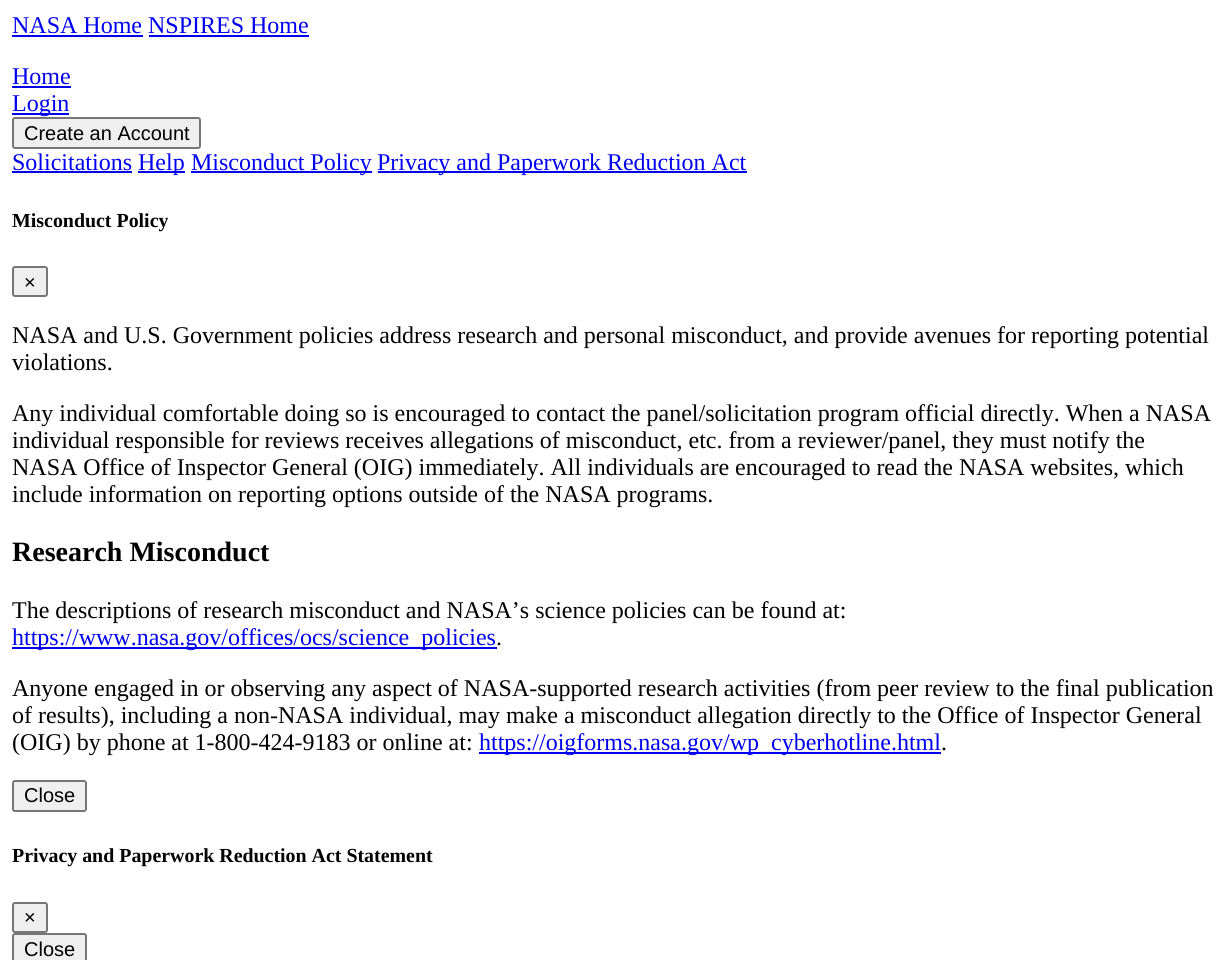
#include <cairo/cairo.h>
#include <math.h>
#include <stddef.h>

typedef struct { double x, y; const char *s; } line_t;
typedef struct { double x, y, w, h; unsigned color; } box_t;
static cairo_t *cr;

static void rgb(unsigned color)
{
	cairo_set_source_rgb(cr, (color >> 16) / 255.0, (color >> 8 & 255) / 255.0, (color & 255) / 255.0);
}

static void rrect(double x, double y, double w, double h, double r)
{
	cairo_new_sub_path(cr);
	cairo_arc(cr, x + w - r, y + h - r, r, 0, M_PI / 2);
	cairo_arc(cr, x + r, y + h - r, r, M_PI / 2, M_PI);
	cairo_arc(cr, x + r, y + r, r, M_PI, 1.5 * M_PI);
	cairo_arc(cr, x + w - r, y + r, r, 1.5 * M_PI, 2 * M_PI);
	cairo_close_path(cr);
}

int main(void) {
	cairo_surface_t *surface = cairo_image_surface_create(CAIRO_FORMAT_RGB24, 1227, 960);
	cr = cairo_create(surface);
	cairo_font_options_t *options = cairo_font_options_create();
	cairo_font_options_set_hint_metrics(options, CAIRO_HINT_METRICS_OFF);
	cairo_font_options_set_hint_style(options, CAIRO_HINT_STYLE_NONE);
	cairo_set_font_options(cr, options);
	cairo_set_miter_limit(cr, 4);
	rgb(0xffffff);
	cairo_paint(cr);
	{
		static const box_t items[] = {
			{12, 35, 131, 2, 0x0000ee},
			{149, 35, 160, 2, 0x0000ee},
			{12, 86, 59, 2, 0x0000ee},
			{12, 113, 57, 2, 0x0000ee},
		};
		for (size_t i = 0; i < sizeof items / sizeof *items; i++) {
			rgb(items[i].color);
			cairo_rectangle(cr, items[i].x, items[i].y, items[i].w, items[i].h);
			cairo_fill(cr);
		}
	}
	rgb(0xefefef);
	rrect(13, 118, 187, 30, 2);
	cairo_fill_preserve(cr);
	rgb(0x767676);
	cairo_stroke(cr);
	{
		static const box_t items[] = {
			{12, 171, 120, 2, 0x0000ee},
			{138, 171, 47, 2, 0x0000ee},
			{191, 171, 181, 2, 0x0000ee},
			{378, 171, 369, 2, 0x0000ee},
		};
		for (size_t i = 0; i < sizeof items / sizeof *items; i++) {
			rgb(items[i].color);
			cairo_rectangle(cr, items[i].x, items[i].y, items[i].w, items[i].h);
			cairo_fill(cr);
		}
	}
	rgb(0xefefef);
	rrect(13, 267, 34, 29, 2);
	cairo_fill_preserve(cr);
	rgb(0x767676);
	cairo_stroke(cr);
	rgb(0x0000ee);
	cairo_rectangle(cr, 12, 647, 485, 2);
	cairo_fill(cr);
	cairo_rectangle(cr, 479, 752, 462, 2);
	cairo_fill(cr);
	rgb(0xefefef);
	rrect(13, 781, 73, 30, 2);
	cairo_fill_preserve(cr);
	rgb(0x767676);
	cairo_stroke(cr);
	rgb(0xefefef);
	rrect(13, 903, 34, 29, 2);
	cairo_fill_preserve(cr);
	rgb(0x767676);
	cairo_stroke(cr);
	rgb(0xefefef);
	rrect(13, 934, 73, 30, 2);
	cairo_fill_preserve(cr);
	rgb(0x767676);
	cairo_stroke(cr);
	cairo_select_font_face(cr, "Liberation Serif", CAIRO_FONT_SLANT_NORMAL, CAIRO_FONT_WEIGHT_NORMAL);
	cairo_set_font_size(cr, 24);
	rgb(0x0000ee);
	{
		static const line_t items[] = {
			{12, 33, "NASA Home NSPIRES Home"},
			{12, 84, "Home"},
			{12, 111, "Login"},
		};
		for (size_t i = 0; i < sizeof items / sizeof *items; i++) {
			cairo_move_to(cr, items[i].x, items[i].y);
			cairo_show_text(cr, items[i].s);
		}
	}
	cairo_select_font_face(cr, "Liberation Sans", CAIRO_FONT_SLANT_NORMAL, CAIRO_FONT_WEIGHT_NORMAL);
	cairo_set_font_size(cr, 20);
	rgb(0x000000);
	cairo_move_to(cr, 24, 140);
	cairo_show_text(cr, "Create an Account");
	cairo_select_font_face(cr, "Liberation Serif", CAIRO_FONT_SLANT_NORMAL, CAIRO_FONT_WEIGHT_NORMAL);
	cairo_set_font_size(cr, 24);
	rgb(0x0000ee);
	{
		static const line_t items[] = {
			{12, 170, "Solicitations"},
			{138, 170, "Help"},
			{191, 170, "Misconduct Policy"},
			{377, 170, "Privacy and Paperwork Reduction Act"},
		};
		for (size_t i = 0; i < sizeof items / sizeof *items; i++) {
			cairo_move_to(cr, items[i].x, items[i].y);
			cairo_show_text(cr, items[i].s);
		}
	}
	cairo_select_font_face(cr, "Liberation Serif", CAIRO_FONT_SLANT_NORMAL, CAIRO_FONT_WEIGHT_BOLD);
	cairo_set_font_size(cr, 19.9);
	rgb(0x000000);
	cairo_move_to(cr, 12, 227);
	cairo_show_text(cr, "Misconduct Policy");
	cairo_select_font_face(cr, "Liberation Sans", CAIRO_FONT_SLANT_NORMAL, CAIRO_FONT_WEIGHT_NORMAL);
	cairo_set_font_size(cr, 20);
	cairo_move_to(cr, 24, 289);
	cairo_show_text(cr, "×");
	cairo_select_font_face(cr, "Liberation Serif", CAIRO_FONT_SLANT_NORMAL, CAIRO_FONT_WEIGHT_NORMAL);
	cairo_set_font_size(cr, 24);
	{
		static const line_t items[] = {
			{12, 343, "NASA and U.S. Government policies address research and personal misconduct, and provide avenues for reporting potential"},
			{12, 370, "violations."},
			{12, 421, "Any individual comfortable doing so is encouraged to contact the panel/solicitation program official directly. When a NASA"},
			{12, 448, "individual responsible for reviews receives allegations of misconduct, etc. from a reviewer/panel, they must notify the"},
			{12, 475, "NASA Office of Inspector General (OIG) immediately. All individuals are encouraged to read the NASA websites, which"},
			{12, 502, "include information on reporting options outside of the NASA programs."},
		};
		for (size_t i = 0; i < sizeof items / sizeof *items; i++) {
			cairo_move_to(cr, items[i].x, items[i].y);
			cairo_show_text(cr, items[i].s);
		}
	}
	cairo_select_font_face(cr, "Liberation Serif", CAIRO_FONT_SLANT_NORMAL, CAIRO_FONT_WEIGHT_BOLD);
	cairo_set_font_size(cr, 28);
	cairo_move_to(cr, 12, 561);
	cairo_show_text(cr, "Research Misconduct");
	cairo_select_font_face(cr, "Liberation Serif", CAIRO_FONT_SLANT_NORMAL, CAIRO_FONT_WEIGHT_NORMAL);
	cairo_set_font_size(cr, 24);
	cairo_move_to(cr, 12, 618);
	cairo_show_text(cr, "The descriptions of research misconduct and NASA’s science policies can be found at:");
	rgb(0x0000ee);
	cairo_move_to(cr, 12, 645);
	cairo_show_text(cr, "https://www.nasa.gov/offices/ocs/science_policies");
	rgb(0x000000);
	{
		static const line_t items[] = {
			{496, 645, "."},
			{12, 696, "Anyone engaged in or observing any aspect of NASA-supported research activities (from peer review to the final publication"},
			{12, 723, "of results), including a non-NASA individual, may make a misconduct allegation directly to the Office of Inspector General"},
			{12, 750, "(OIG) by phone at 1-800-424-9183 or online at:"},
		};
		for (size_t i = 0; i < sizeof items / sizeof *items; i++) {
			cairo_move_to(cr, items[i].x, items[i].y);
			cairo_show_text(cr, items[i].s);
		}
	}
	rgb(0x0000ee);
	cairo_move_to(cr, 479, 750);
	cairo_show_text(cr, "https://oigforms.nasa.gov/wp_cyberhotline.html");
	rgb(0x000000);
	cairo_move_to(cr, 941, 750);
	cairo_show_text(cr, ".");
	cairo_select_font_face(cr, "Liberation Sans", CAIRO_FONT_SLANT_NORMAL, CAIRO_FONT_WEIGHT_NORMAL);
	cairo_set_font_size(cr, 20);
	cairo_move_to(cr, 24, 802);
	cairo_show_text(cr, "Close");
	cairo_select_font_face(cr, "Liberation Serif", CAIRO_FONT_SLANT_NORMAL, CAIRO_FONT_WEIGHT_BOLD);
	cairo_set_font_size(cr, 19.9);
	cairo_move_to(cr, 12, 862);
	cairo_show_text(cr, "Privacy and Paperwork Reduction Act Statement");
	cairo_select_font_face(cr, "Liberation Sans", CAIRO_FONT_SLANT_NORMAL, CAIRO_FONT_WEIGHT_NORMAL);
	cairo_set_font_size(cr, 20);
	cairo_move_to(cr, 24, 924);
	cairo_show_text(cr, "×");
	cairo_move_to(cr, 24, 956);
	cairo_show_text(cr, "Close");
	cairo_surface_write_to_png(surface, "page.png");
	cairo_font_options_destroy(options);
	cairo_destroy(cr);
	cairo_surface_destroy(surface);
	return 0;
}
